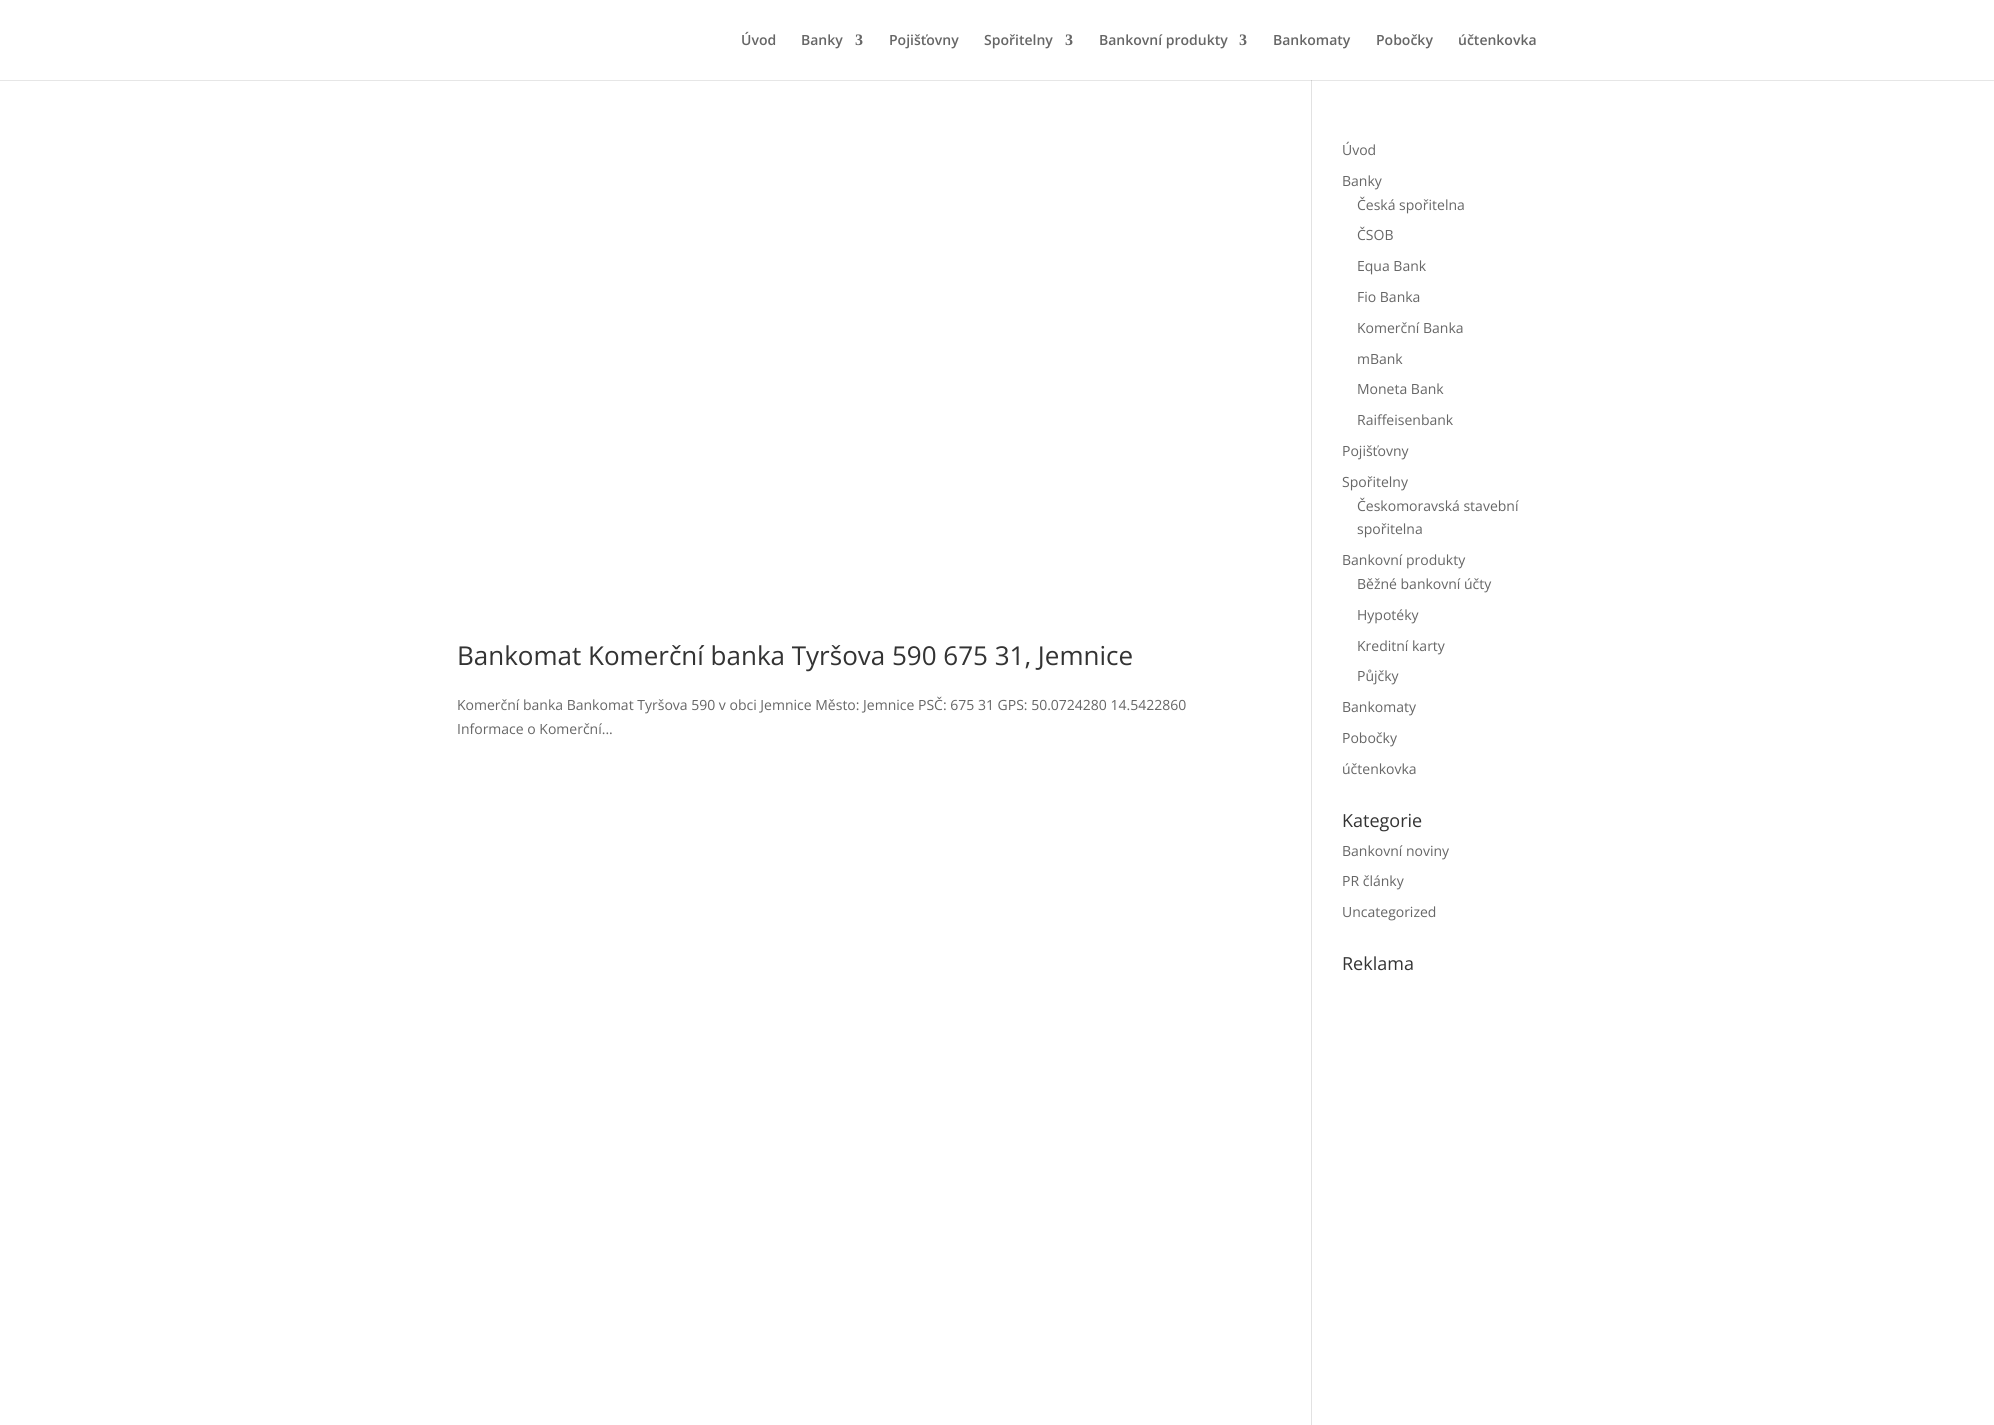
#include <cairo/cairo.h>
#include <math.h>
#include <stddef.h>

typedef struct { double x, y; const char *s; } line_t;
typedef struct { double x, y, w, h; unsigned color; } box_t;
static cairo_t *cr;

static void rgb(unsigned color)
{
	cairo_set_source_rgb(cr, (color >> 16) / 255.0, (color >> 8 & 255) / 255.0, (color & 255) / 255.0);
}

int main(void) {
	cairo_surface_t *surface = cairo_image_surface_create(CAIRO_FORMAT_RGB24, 1994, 1425);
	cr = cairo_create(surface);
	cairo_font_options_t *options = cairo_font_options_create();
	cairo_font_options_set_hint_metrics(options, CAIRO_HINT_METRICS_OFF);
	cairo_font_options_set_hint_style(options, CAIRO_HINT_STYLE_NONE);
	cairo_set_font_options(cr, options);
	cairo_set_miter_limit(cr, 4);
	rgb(0xffffff);
	cairo_paint(cr);
	{
		static const box_t items[] = {
			{0, 80, 1994, 1, 0xe6e6e6},
			{1311, 80, 1, 1345, 0xe2e2e2},
			{1311, 80, 1, 1, 0xcbcbcb},
		};
		for (size_t i = 0; i < sizeof items / sizeof *items; i++) {
			rgb(items[i].color);
			cairo_rectangle(cr, items[i].x, items[i].y, items[i].w, items[i].h);
			cairo_fill(cr);
		}
	}
	cairo_select_font_face(cr, "Open Sans SemiBold", CAIRO_FONT_SLANT_NORMAL, CAIRO_FONT_WEIGHT_NORMAL);
	cairo_set_font_size(cr, 14);
	rgb(0x666666);
	cairo_move_to(cr, 741, 45);
	cairo_show_text(cr, "Úvod");
	cairo_move_to(cr, 801, 45);
	cairo_show_text(cr, "Banky");
	cairo_select_font_face(cr, "Liberation Serif", CAIRO_FONT_SLANT_NORMAL, CAIRO_FONT_WEIGHT_BOLD);
	cairo_set_font_size(cr, 16);
	cairo_move_to(cr, 855, 45);
	cairo_show_text(cr, "3");
	cairo_select_font_face(cr, "Open Sans SemiBold", CAIRO_FONT_SLANT_NORMAL, CAIRO_FONT_WEIGHT_NORMAL);
	cairo_set_font_size(cr, 14);
	cairo_move_to(cr, 889, 45);
	cairo_show_text(cr, "Pojišťovny");
	cairo_move_to(cr, 984, 45);
	cairo_show_text(cr, "Spořitelny");
	cairo_select_font_face(cr, "Liberation Serif", CAIRO_FONT_SLANT_NORMAL, CAIRO_FONT_WEIGHT_BOLD);
	cairo_set_font_size(cr, 16);
	cairo_move_to(cr, 1065, 45);
	cairo_show_text(cr, "3");
	cairo_select_font_face(cr, "Open Sans SemiBold", CAIRO_FONT_SLANT_NORMAL, CAIRO_FONT_WEIGHT_NORMAL);
	cairo_set_font_size(cr, 14);
	cairo_move_to(cr, 1099, 45);
	cairo_show_text(cr, "Bankovní produkty");
	cairo_select_font_face(cr, "Liberation Serif", CAIRO_FONT_SLANT_NORMAL, CAIRO_FONT_WEIGHT_BOLD);
	cairo_set_font_size(cr, 16);
	cairo_move_to(cr, 1239, 45);
	cairo_show_text(cr, "3");
	cairo_select_font_face(cr, "Open Sans SemiBold", CAIRO_FONT_SLANT_NORMAL, CAIRO_FONT_WEIGHT_NORMAL);
	cairo_set_font_size(cr, 14);
	{
		static const line_t items[] = {
			{1273, 45, "Bankomaty"},
			{1376, 45, "Pobočky"},
			{1458, 45, "účtenkovka"},
		};
		for (size_t i = 0; i < sizeof items / sizeof *items; i++) {
			cairo_move_to(cr, items[i].x, items[i].y);
			cairo_show_text(cr, items[i].s);
		}
	}
	cairo_select_font_face(cr, "Open Sans", CAIRO_FONT_SLANT_NORMAL, CAIRO_FONT_WEIGHT_NORMAL);
	cairo_set_font_size(cr, 26);
	rgb(0x333333);
	cairo_move_to(cr, 457, 665);
	cairo_show_text(cr, "Bankomat Komerční banka Tyršova 590 675 31, Jemnice");
	cairo_set_font_size(cr, 14);
	rgb(0x666666);
	{
		static const line_t items[] = {
			{457, 710, "Komerční banka Bankomat Tyršova 590 v obci Jemnice Město: Jemnice PSČ: 675 31 GPS: 50.0724280 14.5422860"},
			{457, 734, "Informace o Komerční..."},
			{1342, 155, "Úvod"},
			{1342, 186, "Banky"},
			{1357, 210, "Česká spořitelna"},
			{1357, 240, "ČSOB"},
			{1357, 271, "Equa Bank"},
			{1357, 302, "Fio Banka"},
			{1357, 333, "Komerční Banka"},
			{1357, 364, "mBank"},
			{1357, 394, "Moneta Bank"},
			{1357, 425, "Raiffeisenbank"},
			{1342, 456, "Pojišťovny"},
			{1342, 487, "Spořitelny"},
			{1357, 511, "Českomoravská stavební"},
			{1357, 534, "spořitelna"},
			{1342, 565, "Bankovní produkty"},
			{1357, 589, "Běžné bankovní účty"},
			{1357, 620, "Hypotéky"},
			{1357, 651, "Kreditní karty"},
			{1357, 681, "Půjčky"},
			{1342, 712, "Bankomaty"},
			{1342, 743, "Pobočky"},
			{1342, 774, "účtenkovka"},
		};
		for (size_t i = 0; i < sizeof items / sizeof *items; i++) {
			cairo_move_to(cr, items[i].x, items[i].y);
			cairo_show_text(cr, items[i].s);
		}
	}
	cairo_set_font_size(cr, 18);
	rgb(0x333333);
	cairo_move_to(cr, 1342, 827);
	cairo_show_text(cr, "Kategorie");
	cairo_set_font_size(cr, 14);
	rgb(0x666666);
	{
		static const line_t items[] = {
			{1342, 856, "Bankovní noviny"},
			{1342, 886, "PR články"},
			{1342, 917, "Uncategorized"},
		};
		for (size_t i = 0; i < sizeof items / sizeof *items; i++) {
			cairo_move_to(cr, items[i].x, items[i].y);
			cairo_show_text(cr, items[i].s);
		}
	}
	cairo_set_font_size(cr, 18);
	rgb(0x333333);
	cairo_move_to(cr, 1342, 970);
	cairo_show_text(cr, "Reklama");
	cairo_surface_write_to_png(surface, "page.png");
	cairo_font_options_destroy(options);
	cairo_destroy(cr);
	cairo_surface_destroy(surface);
	return 0;
}
